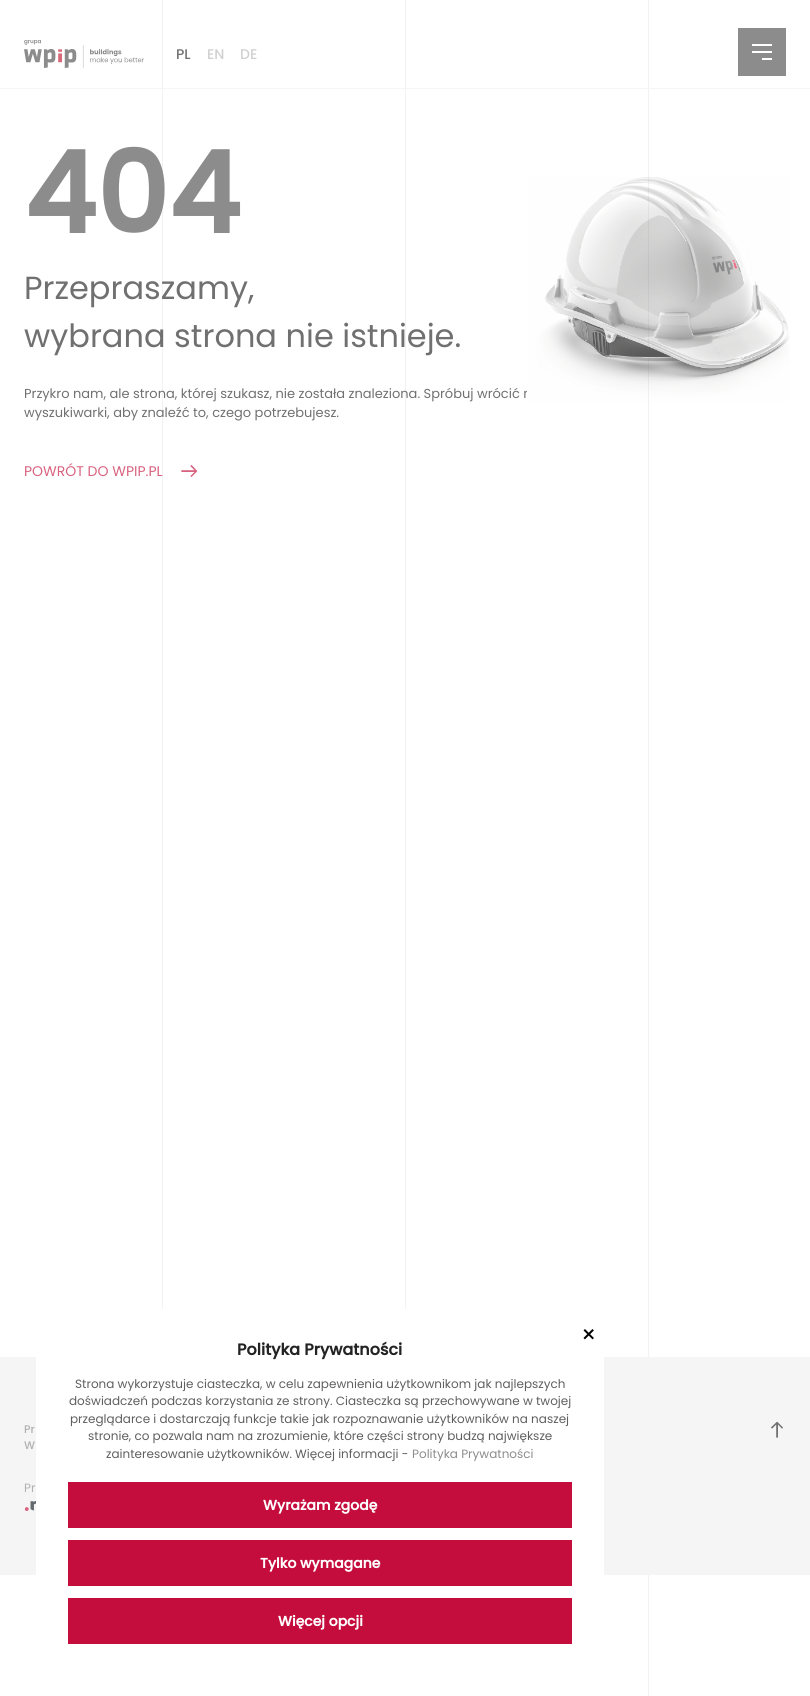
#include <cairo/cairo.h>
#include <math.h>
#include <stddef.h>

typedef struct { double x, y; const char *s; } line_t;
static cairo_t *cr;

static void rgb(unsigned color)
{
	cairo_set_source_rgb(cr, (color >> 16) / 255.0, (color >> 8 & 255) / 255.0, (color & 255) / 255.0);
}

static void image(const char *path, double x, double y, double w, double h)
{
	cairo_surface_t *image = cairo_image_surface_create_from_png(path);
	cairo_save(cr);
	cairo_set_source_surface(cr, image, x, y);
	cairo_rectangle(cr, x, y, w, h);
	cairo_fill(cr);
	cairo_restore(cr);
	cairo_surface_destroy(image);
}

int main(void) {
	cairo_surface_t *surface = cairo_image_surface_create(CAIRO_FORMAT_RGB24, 810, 1696);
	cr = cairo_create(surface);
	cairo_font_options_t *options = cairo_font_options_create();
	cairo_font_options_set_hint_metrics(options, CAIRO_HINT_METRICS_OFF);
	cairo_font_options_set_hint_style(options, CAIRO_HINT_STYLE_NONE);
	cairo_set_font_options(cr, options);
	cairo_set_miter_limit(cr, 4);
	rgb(0xffffff);
	cairo_paint(cr);
	image("img/1.png", 24, 40, 120, 28);
	rgb(0x8c8c8d);
	cairo_rectangle(cr, 738, 28, 48, 48);
	cairo_fill(cr);
	rgb(0xffffff);
	cairo_rectangle(cr, 752, 44, 20, 2);
	cairo_fill(cr);
	cairo_rectangle(cr, 752, 51, 20, 2);
	cairo_fill(cr);
	cairo_rectangle(cr, 762, 58, 10, 2);
	cairo_fill(cr);
	cairo_set_source_rgba(cr, 0.349, 0.349, 0.349, 0.08);
	cairo_rectangle(cr, 162, 0, 1, 1309);
	cairo_fill(cr);
	cairo_rectangle(cr, 405, 0, 1, 1309);
	cairo_fill(cr);
	image("img/2.png", 181, 465, 17, 12);
	rgb(0xc40d3c);
	cairo_rectangle(cr, 68, 1598, 504, 46);
	cairo_fill(cr);
	cairo_select_font_face(cr, "Poppins Medium", CAIRO_FONT_SLANT_NORMAL, CAIRO_FONT_WEIGHT_NORMAL);
	cairo_set_font_size(cr, 14);
	rgb(0x707070);
	cairo_move_to(cr, 176, 59);
	cairo_show_text(cr, "PL");
	rgb(0xd0d0d0);
	cairo_move_to(cr, 207, 59);
	cairo_show_text(cr, "EN");
	cairo_move_to(cr, 240, 59);
	cairo_show_text(cr, "DE");
	cairo_select_font_face(cr, "Poppins", CAIRO_FONT_SLANT_NORMAL, CAIRO_FONT_WEIGHT_BOLD);
	cairo_set_font_size(cr, 112);
	rgb(0x8c8c8d);
	cairo_move_to(cr, 24, 233);
	cairo_show_text(cr, "404");
	cairo_select_font_face(cr, "Poppins", CAIRO_FONT_SLANT_NORMAL, CAIRO_FONT_WEIGHT_NORMAL);
	cairo_set_font_size(cr, 32);
	rgb(0x707070);
	cairo_move_to(cr, 24, 299);
	cairo_show_text(cr, "Przepraszamy,");
	cairo_move_to(cr, 24, 347);
	cairo_show_text(cr, "wybrana strona nie istnieje.");
	cairo_set_font_size(cr, 13);
	cairo_move_to(cr, 24, 398);
	cairo_show_text(cr, "Przykro nam, ale strona, której szukasz, nie została znaleziona. Spróbuj wrócić n");
	cairo_move_to(cr, 24, 417);
	cairo_show_text(cr, "wyszukiwarki, aby znaleźć to, czego potrzebujesz.");
	cairo_set_font_size(cr, 14);
	rgb(0xd96280);
	cairo_move_to(cr, 24, 476);
	cairo_show_text(cr, "POWRÓT DO WPIP.PL");
	image("img/3.png", 527, 177, 263, 225);
	cairo_set_source_rgba(cr, 0.349, 0.349, 0.349, 0.08);
	cairo_rectangle(cr, 648, 0, 1, 1696);
	cairo_fill(cr);
	rgb(0xf5f5f5);
	cairo_rectangle(cr, 0, 88, 810, 1);
	cairo_fill(cr);
	cairo_rectangle(cr, 0, 1357, 810, 218);
	cairo_fill(cr);
	cairo_select_font_face(cr, "Poppins Medium", CAIRO_FONT_SLANT_NORMAL, CAIRO_FONT_WEIGHT_NORMAL);
	cairo_set_font_size(cr, 11);
	rgb(0xb0b0b0);
	cairo_move_to(cr, 24, 1433);
	cairo_show_text(cr, "Pr");
	cairo_move_to(cr, 24, 1449);
	cairo_show_text(cr, "W");
	image("img/4.png", 771, 1421, 12, 17);
	cairo_select_font_face(cr, "Poppins", CAIRO_FONT_SLANT_NORMAL, CAIRO_FONT_WEIGHT_NORMAL);
	cairo_set_font_size(cr, 12);
	cairo_move_to(cr, 24, 1492);
	cairo_show_text(cr, "Pr");
	image("img/5.png", 24, 1501, 12, 10);
	rgb(0xffffff);
	cairo_rectangle(cr, 36, 1357, 568, 218);
	cairo_fill(cr);
	cairo_set_font_size(cr, 24);
	rgb(0x000000);
	cairo_move_to(cr, 581, 1343);
	cairo_show_text(cr, "×");
	cairo_select_font_face(cr, "Poppins", CAIRO_FONT_SLANT_NORMAL, CAIRO_FONT_WEIGHT_BOLD);
	cairo_set_font_size(cr, 16);
	rgb(0x232323);
	cairo_move_to(cr, 237, 1355);
	cairo_show_text(cr, "Polityka Prywatności");
	cairo_select_font_face(cr, "Poppins", CAIRO_FONT_SLANT_NORMAL, CAIRO_FONT_WEIGHT_NORMAL);
	cairo_set_font_size(cr, 12);
	rgb(0x5f5f5f);
	{
		static const line_t items[] = {
			{75, 1388, "Strona wykorzystuje ciasteczka, w celu zapewnienia użytkownikom jak najlepszych"},
			{69, 1405, "doświadczeń podczas korzystania ze strony. Ciasteczka są przechowywane w twojej"},
			{70, 1423, "przeglądarce i dostarczają funkcje takie jak rozpoznawanie użytkowników na naszej"},
			{88, 1440, "stronie, co pozwala nam na zrozumienie, które części strony budzą największe"},
			{106, 1458, "zainteresowanie użytkowników. Więcej informacji -"},
		};
		for (size_t i = 0; i < sizeof items / sizeof *items; i++) {
			cairo_move_to(cr, items[i].x, items[i].y);
			cairo_show_text(cr, items[i].s);
		}
	}
	rgb(0x8c8c8d);
	cairo_move_to(cr, 412, 1458);
	cairo_show_text(cr, "Polityka Prywatności");
	rgb(0xc40d3c);
	cairo_rectangle(cr, 68, 1482, 504, 46);
	cairo_fill(cr);
	cairo_select_font_face(cr, "Poppins", CAIRO_FONT_SLANT_NORMAL, CAIRO_FONT_WEIGHT_BOLD);
	cairo_set_font_size(cr, 14);
	rgb(0xffffff);
	cairo_move_to(cr, 263, 1510);
	cairo_show_text(cr, "Wyrażam zgodę");
	rgb(0xc40d3c);
	cairo_rectangle(cr, 68, 1540, 504, 46);
	cairo_fill(cr);
	rgb(0xffffff);
	cairo_move_to(cr, 260, 1568);
	cairo_show_text(cr, "Tylko wymagane");
	cairo_move_to(cr, 278, 1626);
	cairo_show_text(cr, "Więcej opcji");
	cairo_surface_write_to_png(surface, "page.png");
	cairo_font_options_destroy(options);
	cairo_destroy(cr);
	cairo_surface_destroy(surface);
	return 0;
}
